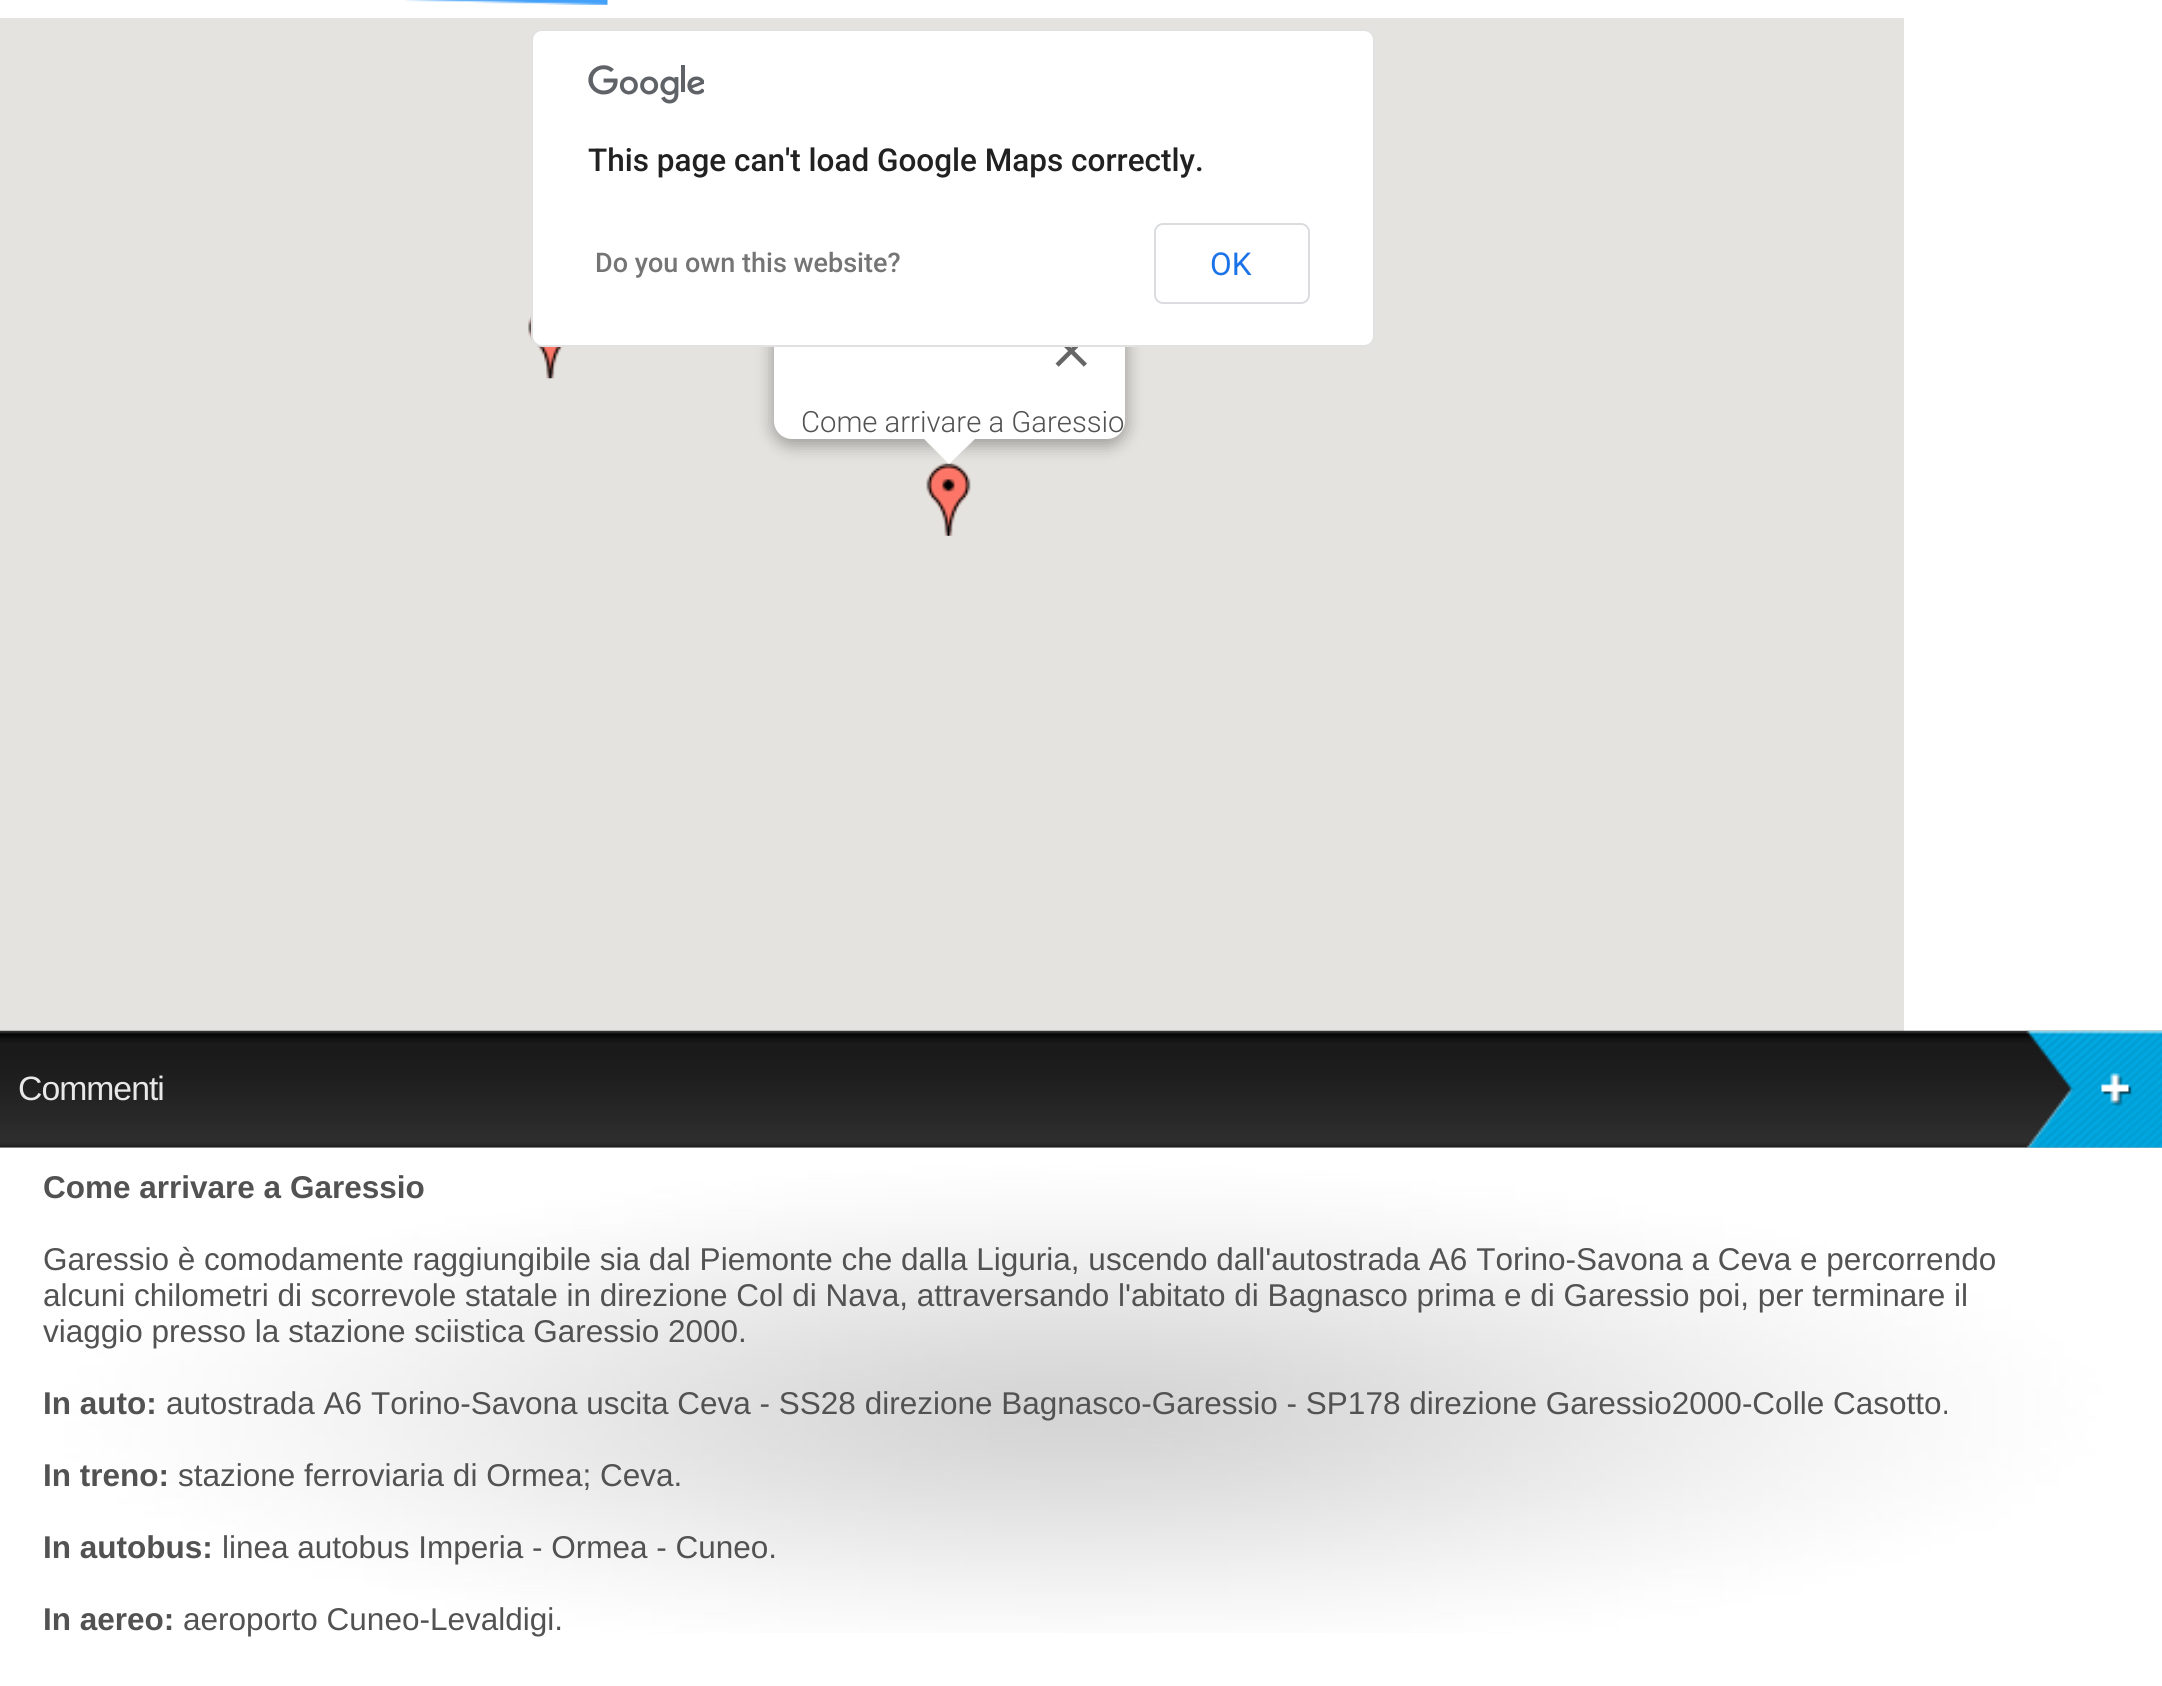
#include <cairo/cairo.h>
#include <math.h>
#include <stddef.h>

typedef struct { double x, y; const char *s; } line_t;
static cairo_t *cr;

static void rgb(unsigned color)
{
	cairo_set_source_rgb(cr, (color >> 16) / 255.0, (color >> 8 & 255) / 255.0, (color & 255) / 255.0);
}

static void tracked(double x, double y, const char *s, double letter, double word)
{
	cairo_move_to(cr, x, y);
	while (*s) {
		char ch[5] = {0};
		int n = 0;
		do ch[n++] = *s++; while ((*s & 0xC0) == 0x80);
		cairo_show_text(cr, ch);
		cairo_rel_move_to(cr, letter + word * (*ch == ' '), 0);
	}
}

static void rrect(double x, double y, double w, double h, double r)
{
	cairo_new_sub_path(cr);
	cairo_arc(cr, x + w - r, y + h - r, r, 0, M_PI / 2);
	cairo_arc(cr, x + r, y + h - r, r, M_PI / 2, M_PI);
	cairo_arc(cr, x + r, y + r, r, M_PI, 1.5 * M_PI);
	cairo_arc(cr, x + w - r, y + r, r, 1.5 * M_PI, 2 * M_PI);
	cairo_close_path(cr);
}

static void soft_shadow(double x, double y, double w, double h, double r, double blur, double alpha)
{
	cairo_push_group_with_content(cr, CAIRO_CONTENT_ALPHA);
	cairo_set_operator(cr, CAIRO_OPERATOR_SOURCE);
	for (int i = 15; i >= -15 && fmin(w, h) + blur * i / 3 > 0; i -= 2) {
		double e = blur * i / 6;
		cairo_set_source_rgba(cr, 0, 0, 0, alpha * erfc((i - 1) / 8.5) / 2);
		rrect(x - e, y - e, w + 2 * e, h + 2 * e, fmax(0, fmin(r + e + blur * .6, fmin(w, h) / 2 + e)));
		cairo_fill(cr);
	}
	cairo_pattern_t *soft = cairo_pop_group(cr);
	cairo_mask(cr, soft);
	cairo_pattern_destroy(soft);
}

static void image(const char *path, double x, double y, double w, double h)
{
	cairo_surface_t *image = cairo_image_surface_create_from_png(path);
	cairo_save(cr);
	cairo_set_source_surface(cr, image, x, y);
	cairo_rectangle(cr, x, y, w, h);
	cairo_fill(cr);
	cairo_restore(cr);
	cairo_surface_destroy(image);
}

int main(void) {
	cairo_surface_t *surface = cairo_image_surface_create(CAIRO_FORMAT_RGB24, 2162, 1686);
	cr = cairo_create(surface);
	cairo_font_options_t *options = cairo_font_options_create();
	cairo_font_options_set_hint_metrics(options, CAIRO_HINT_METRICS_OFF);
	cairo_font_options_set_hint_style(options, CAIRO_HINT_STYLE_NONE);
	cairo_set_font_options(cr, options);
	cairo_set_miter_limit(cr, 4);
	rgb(0xffffff);
	cairo_paint(cr);
	image("img/1.png", 405, 0, 203, 5);
	rgb(0xe5e3df);
	cairo_rectangle(cr, 0, 18, 1904, 1013);
	cairo_fill(cr);
	image("img/3.png", 528, 315, 35, 64);
	image("img/4.png", 926, 463, 45, 73);
	rgb(0x000000);
	soft_shadow(772, 299, 355, 147, 20, 8, 0.3);
	rgb(0xffffff);
	rrect(774, 297, 351, 142, 18);
	cairo_fill(cr);
	rrect(531, 29, 844, 318, 11);
	cairo_fill(cr);
	rrect(532, 30, 842, 316, 10);
	cairo_set_source_rgba(cr, 0, 0, 0, 0.12);
	cairo_stroke(cr);
	image("img/2.png", 588, 65, 116, 39);
	rrect(1155, 224, 154, 79, 8);
	rgb(0xdadce0);
	cairo_stroke(cr);
	image("img/5.png", 1055, 347, 32, 20);
	rgb(0xffffff);
	cairo_new_path(cr);
	cairo_move_to(cr, 923, 437);
	cairo_line_to(cr, 923, 438);
	cairo_line_to(cr, 949, 464);
	cairo_line_to(cr, 977, 437);
	cairo_close_path(cr);
	cairo_fill(cr);
	image("img/6.png", 0, 1030, 2162, 118);
	image("img/7.png", 2026, 1030, 136, 118);
	image("img/8.png", 0, 1147, 2162, 486);
	cairo_select_font_face(cr, "Roboto Medium", CAIRO_FONT_SLANT_NORMAL, CAIRO_FONT_WEIGHT_NORMAL);
	cairo_set_font_size(cr, 31.5);
	rgb(0x212121);
	cairo_move_to(cr, 588, 171);
	cairo_show_text(cr, "This page can't load Google Maps correctly.");
	cairo_set_font_size(cr, 27);
	rgb(0x757575);
	cairo_move_to(cr, 595, 272);
	cairo_show_text(cr, "Do you own this website?");
	cairo_select_font_face(cr, "Roboto", CAIRO_FONT_SLANT_NORMAL, CAIRO_FONT_WEIGHT_NORMAL);
	cairo_set_font_size(cr, 31.5);
	rgb(0x1a73e8);
	cairo_move_to(cr, 1210, 275);
	cairo_show_text(cr, "OK");
	cairo_select_font_face(cr, "Roboto Light", CAIRO_FONT_SLANT_NORMAL, CAIRO_FONT_WEIGHT_NORMAL);
	cairo_set_font_size(cr, 29.25);
	rgb(0x525252);
	cairo_move_to(cr, 801, 432);
	cairo_show_text(cr, "Come arrivare a Garessio");
	cairo_select_font_face(cr, "Liberation Sans", CAIRO_FONT_SLANT_NORMAL, CAIRO_FONT_WEIGHT_NORMAL);
	cairo_set_font_size(cr, 33.75);
	rgb(0xe8e8e8);
	tracked(18, 1100, "Commenti", -1, 0);
	cairo_select_font_face(cr, "Liberation Sans", CAIRO_FONT_SLANT_NORMAL, CAIRO_FONT_WEIGHT_BOLD);
	cairo_set_font_size(cr, 31.5);
	rgb(0x525252);
	cairo_move_to(cr, 43, 1198);
	cairo_show_text(cr, "Come arrivare a Garessio");
	cairo_select_font_face(cr, "Liberation Sans", CAIRO_FONT_SLANT_NORMAL, CAIRO_FONT_WEIGHT_NORMAL);
	{
		static const line_t items[] = {
			{43, 1270, "Garessio è comodamente raggiungibile sia dal Piemonte che dalla Liguria, uscendo dall'autostrada A6 Torino-Savona a Ceva e percorrendo"},
			{43, 1306, "alcuni chilometri di scorrevole statale in direzione Col di Nava, attraversando l'abitato di Bagnasco prima e di Garessio poi, per terminare il"},
			{43, 1342, "viaggio presso la stazione sciistica Garessio 2000."},
		};
		for (size_t i = 0; i < sizeof items / sizeof *items; i++) {
			cairo_move_to(cr, items[i].x, items[i].y);
			cairo_show_text(cr, items[i].s);
		}
	}
	cairo_select_font_face(cr, "Liberation Sans", CAIRO_FONT_SLANT_NORMAL, CAIRO_FONT_WEIGHT_BOLD);
	cairo_move_to(cr, 43, 1414);
	cairo_show_text(cr, "In auto:");
	cairo_select_font_face(cr, "Liberation Sans", CAIRO_FONT_SLANT_NORMAL, CAIRO_FONT_WEIGHT_NORMAL);
	cairo_move_to(cr, 166, 1414);
	cairo_show_text(cr, "autostrada A6 Torino-Savona uscita Ceva - SS28 direzione Bagnasco-Garessio - SP178 direzione Garessio2000-Colle Casotto.");
	cairo_select_font_face(cr, "Liberation Sans", CAIRO_FONT_SLANT_NORMAL, CAIRO_FONT_WEIGHT_BOLD);
	cairo_move_to(cr, 43, 1486);
	cairo_show_text(cr, "In treno:");
	cairo_select_font_face(cr, "Liberation Sans", CAIRO_FONT_SLANT_NORMAL, CAIRO_FONT_WEIGHT_NORMAL);
	cairo_move_to(cr, 178, 1486);
	cairo_show_text(cr, "stazione ferroviaria di Ormea; Ceva.");
	cairo_select_font_face(cr, "Liberation Sans", CAIRO_FONT_SLANT_NORMAL, CAIRO_FONT_WEIGHT_BOLD);
	cairo_move_to(cr, 43, 1558);
	cairo_show_text(cr, "In autobus:");
	cairo_select_font_face(cr, "Liberation Sans", CAIRO_FONT_SLANT_NORMAL, CAIRO_FONT_WEIGHT_NORMAL);
	cairo_move_to(cr, 222, 1558);
	cairo_show_text(cr, "linea autobus Imperia - Ormea - Cuneo.");
	cairo_select_font_face(cr, "Liberation Sans", CAIRO_FONT_SLANT_NORMAL, CAIRO_FONT_WEIGHT_BOLD);
	cairo_move_to(cr, 43, 1630);
	cairo_show_text(cr, "In aereo:");
	cairo_select_font_face(cr, "Liberation Sans", CAIRO_FONT_SLANT_NORMAL, CAIRO_FONT_WEIGHT_NORMAL);
	cairo_move_to(cr, 183, 1630);
	cairo_show_text(cr, "aeroporto Cuneo-Levaldigi.");
	cairo_surface_write_to_png(surface, "page.png");
	cairo_font_options_destroy(options);
	cairo_destroy(cr);
	cairo_surface_destroy(surface);
	return 0;
}
